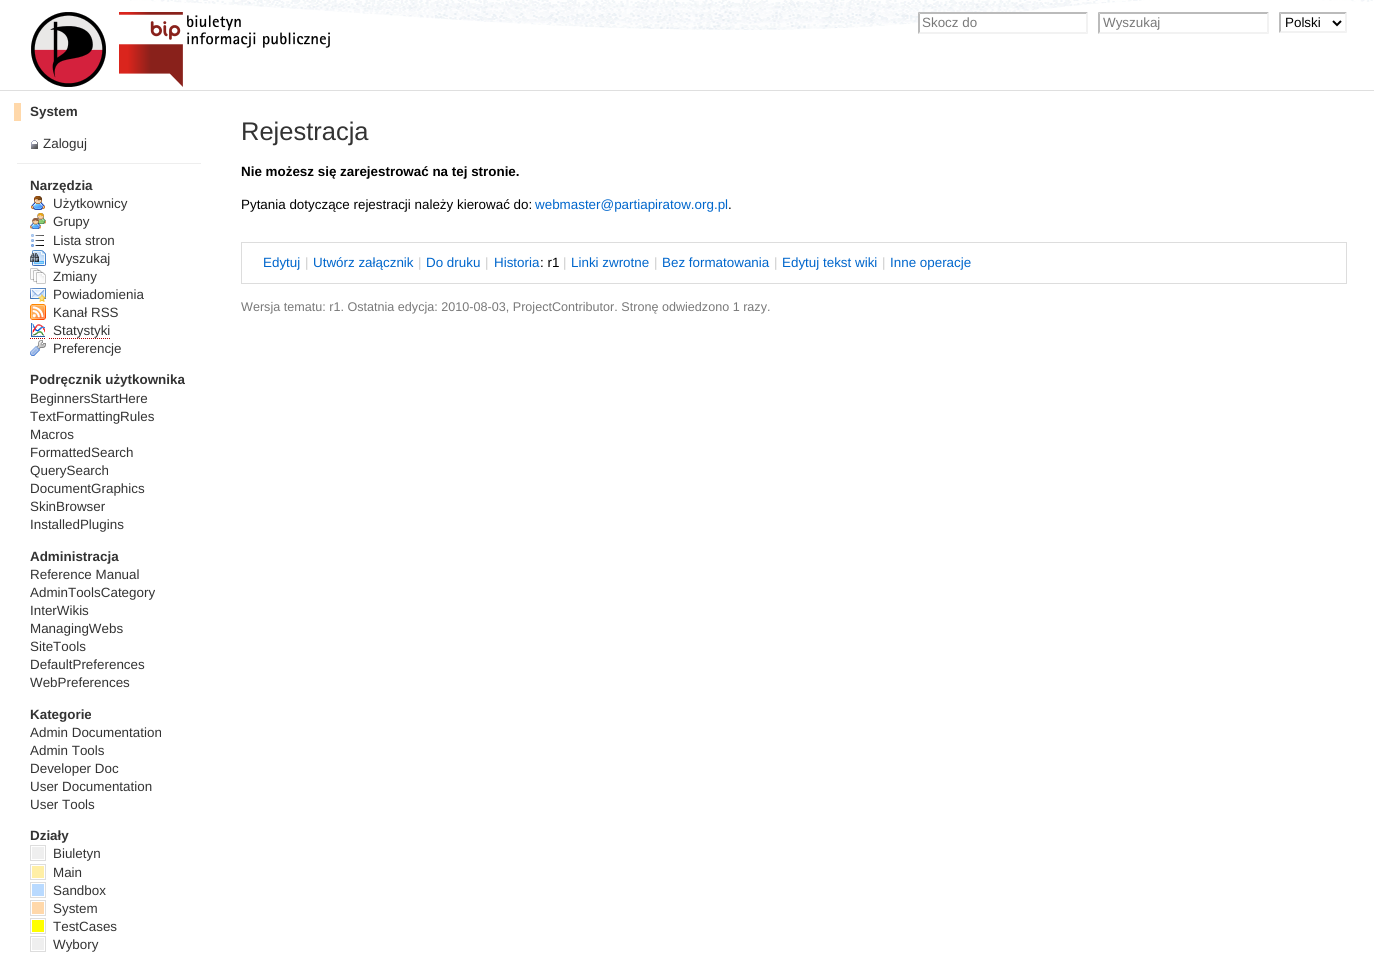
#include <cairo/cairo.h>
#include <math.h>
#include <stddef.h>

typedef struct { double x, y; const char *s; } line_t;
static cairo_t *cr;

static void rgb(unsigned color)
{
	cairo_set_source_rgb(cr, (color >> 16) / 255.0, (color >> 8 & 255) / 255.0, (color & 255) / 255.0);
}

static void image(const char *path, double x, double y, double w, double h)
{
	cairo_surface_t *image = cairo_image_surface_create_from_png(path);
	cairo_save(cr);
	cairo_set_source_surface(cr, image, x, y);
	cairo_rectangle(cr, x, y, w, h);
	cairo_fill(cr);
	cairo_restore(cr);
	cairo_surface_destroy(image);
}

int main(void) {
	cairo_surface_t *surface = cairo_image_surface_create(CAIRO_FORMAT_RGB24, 1374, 970);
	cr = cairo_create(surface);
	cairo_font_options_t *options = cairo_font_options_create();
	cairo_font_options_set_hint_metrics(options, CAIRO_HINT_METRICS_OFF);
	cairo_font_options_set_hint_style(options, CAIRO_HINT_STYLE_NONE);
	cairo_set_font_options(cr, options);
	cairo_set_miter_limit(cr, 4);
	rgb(0xffffff);
	cairo_paint(cr);
	rgb(0xdfdfdf);
	cairo_rectangle(cr, 0, 90, 1374, 1);
	cairo_fill(cr);
	image("img/1.png", 130, 0, 1243, 30);
	image("img/2.png", 31, 12, 299, 75);
	rgb(0xffffff);
	cairo_rectangle(cr, 918, 12, 97, 11);
	cairo_fill(cr);
	rgb(0xbbbbbb);
	cairo_new_path(cr);
	cairo_move_to(cr, 918, 12);
	cairo_line_to(cr, 1088, 12);
	cairo_line_to(cr, 1086, 14);
	cairo_line_to(cr, 920, 14);
	cairo_close_path(cr);
	cairo_fill(cr);
	rgb(0xf2f2f2);
	cairo_new_path(cr);
	cairo_move_to(cr, 1088, 12);
	cairo_line_to(cr, 1088, 34);
	cairo_line_to(cr, 1086, 32);
	cairo_line_to(cr, 1086, 14);
	cairo_close_path(cr);
	cairo_fill(cr);
	cairo_new_path(cr);
	cairo_move_to(cr, 1088, 34);
	cairo_line_to(cr, 918, 34);
	cairo_line_to(cr, 920, 32);
	cairo_line_to(cr, 1086, 32);
	cairo_close_path(cr);
	cairo_fill(cr);
	rgb(0xbbbbbb);
	cairo_new_path(cr);
	cairo_move_to(cr, 918, 34);
	cairo_line_to(cr, 918, 12);
	cairo_line_to(cr, 920, 14);
	cairo_line_to(cr, 920, 32);
	cairo_close_path(cr);
	cairo_fill(cr);
	cairo_new_path(cr);
	cairo_move_to(cr, 1098, 12);
	cairo_line_to(cr, 1269, 12);
	cairo_line_to(cr, 1267, 14);
	cairo_line_to(cr, 1100, 14);
	cairo_close_path(cr);
	cairo_fill(cr);
	rgb(0xf2f2f2);
	cairo_new_path(cr);
	cairo_move_to(cr, 1269, 12);
	cairo_line_to(cr, 1269, 34);
	cairo_line_to(cr, 1267, 32);
	cairo_line_to(cr, 1267, 14);
	cairo_close_path(cr);
	cairo_fill(cr);
	cairo_new_path(cr);
	cairo_move_to(cr, 1269, 34);
	cairo_line_to(cr, 1098, 34);
	cairo_line_to(cr, 1100, 32);
	cairo_line_to(cr, 1267, 32);
	cairo_close_path(cr);
	cairo_fill(cr);
	rgb(0xbbbbbb);
	cairo_new_path(cr);
	cairo_move_to(cr, 1098, 34);
	cairo_line_to(cr, 1098, 12);
	cairo_line_to(cr, 1100, 14);
	cairo_line_to(cr, 1100, 32);
	cairo_close_path(cr);
	cairo_fill(cr);
	cairo_new_path(cr);
	cairo_move_to(cr, 1279, 12);
	cairo_line_to(cr, 1347, 12);
	cairo_line_to(cr, 1345, 14);
	cairo_line_to(cr, 1281, 14);
	cairo_close_path(cr);
	cairo_fill(cr);
	rgb(0xf2f2f2);
	cairo_new_path(cr);
	cairo_move_to(cr, 1347, 12);
	cairo_line_to(cr, 1347, 33);
	cairo_line_to(cr, 1345, 31);
	cairo_line_to(cr, 1345, 14);
	cairo_close_path(cr);
	cairo_fill(cr);
	cairo_new_path(cr);
	cairo_move_to(cr, 1347, 33);
	cairo_line_to(cr, 1279, 33);
	cairo_line_to(cr, 1281, 31);
	cairo_line_to(cr, 1345, 31);
	cairo_close_path(cr);
	cairo_fill(cr);
	rgb(0xbbbbbb);
	cairo_new_path(cr);
	cairo_move_to(cr, 1279, 33);
	cairo_line_to(cr, 1279, 12);
	cairo_line_to(cr, 1281, 14);
	cairo_line_to(cr, 1281, 31);
	cairo_close_path(cr);
	cairo_fill(cr);
	cairo_new_path(cr);
	cairo_move_to(cr, 1333, 21);
	cairo_line_to(cr, 1337, 25);
	cairo_line_to(cr, 1341, 21);
	rgb(0x000000);
	cairo_stroke(cr);
	rgb(0xffd8aa);
	cairo_rectangle(cr, 14, 103, 7, 18);
	cairo_fill(cr);
	rgb(0xeeeeee);
	cairo_rectangle(cr, 17, 163, 184, 1);
	cairo_fill(cr);
	image("img/3.png", 31, 140, 7, 9);
	image("img/4.png", 31, 196, 14, 14);
	image("img/5.png", 30, 213, 16, 16);
	image("img/6.png", 31, 234, 13, 13);
	image("img/7.png", 30, 250, 16, 16);
	image("img/8.png", 30, 268, 16, 16);
	image("img/9.png", 30, 288, 16, 14);
	image("img/10.png", 30, 304, 16, 16);
	image("img/11.png", 31, 323, 14, 14);
	cairo_new_path(cr);
	cairo_move_to(cr, 30, 338.5);
	cairo_line_to(cr, 46, 338.5);
	rgb(0xb00000);
	cairo_set_line_width(cr, 1);
	cairo_set_dash(cr, (double[]){1, 1}, 2, 0);
	cairo_stroke(cr);
	cairo_new_path(cr);
	cairo_move_to(cr, 49, 338.5);
	cairo_line_to(cr, 110, 338.5);
	cairo_stroke(cr);
	image("img/12.png", 30, 340, 16, 16);
	rgb(0xefefef);
	cairo_rectangle(cr, 32, 847, 12, 12);
	cairo_fill(cr);
	image("img/13.png", 30, 845, 16, 16);
	rgb(0xffefa6);
	cairo_rectangle(cr, 32, 866, 12, 12);
	cairo_fill(cr);
	image("img/14.png", 30, 864, 16, 16);
	rgb(0xb9daff);
	cairo_rectangle(cr, 32, 884, 12, 12);
	cairo_fill(cr);
	image("img/15.png", 30, 882, 16, 16);
	rgb(0xffd8aa);
	cairo_rectangle(cr, 32, 902, 12, 12);
	cairo_fill(cr);
	image("img/16.png", 30, 900, 16, 16);
	rgb(0xffff00);
	cairo_rectangle(cr, 32, 920, 12, 12);
	cairo_fill(cr);
	image("img/17.png", 30, 918, 16, 16);
	rgb(0xefefef);
	cairo_rectangle(cr, 32, 938, 12, 12);
	cairo_fill(cr);
	image("img/13.png", 30, 936, 16, 16);
	cairo_rectangle(cr, 241.5, 242.5, 1105, 41);
	rgb(0xdddddd);
	cairo_set_dash(cr, NULL, 0, 0);
	cairo_stroke(cr);
	cairo_select_font_face(cr, "Liberation Sans", CAIRO_FONT_SLANT_NORMAL, CAIRO_FONT_WEIGHT_NORMAL);
	cairo_set_font_size(cr, 13.4);
	rgb(0x797979);
	cairo_move_to(cr, 922, 27);
	cairo_show_text(cr, "Skocz do");
	cairo_move_to(cr, 1103, 27);
	cairo_show_text(cr, "Wyszukaj");
	rgb(0x000000);
	cairo_move_to(cr, 1285, 27);
	cairo_show_text(cr, "Polski");
	cairo_select_font_face(cr, "Liberation Sans", CAIRO_FONT_SLANT_NORMAL, CAIRO_FONT_WEIGHT_BOLD);
	rgb(0x333333);
	cairo_move_to(cr, 30, 116);
	cairo_show_text(cr, "System");
	cairo_select_font_face(cr, "Liberation Sans", CAIRO_FONT_SLANT_NORMAL, CAIRO_FONT_WEIGHT_NORMAL);
	cairo_move_to(cr, 43, 148);
	cairo_show_text(cr, "Zaloguj");
	cairo_select_font_face(cr, "Liberation Sans", CAIRO_FONT_SLANT_NORMAL, CAIRO_FONT_WEIGHT_BOLD);
	cairo_move_to(cr, 30, 190);
	cairo_show_text(cr, "Narzędzia");
	cairo_select_font_face(cr, "Liberation Sans", CAIRO_FONT_SLANT_NORMAL, CAIRO_FONT_WEIGHT_NORMAL);
	{
		static const line_t items[] = {
			{53, 208, "Użytkownicy"},
			{53, 226, "Grupy"},
			{53, 245, "Lista stron"},
			{53, 263, "Wyszukaj"},
			{53, 281, "Zmiany"},
			{53, 299, "Powiadomienia"},
			{53, 317, "Kanał RSS"},
			{53, 335, "Statystyki"},
			{53, 353, "Preferencje"},
		};
		for (size_t i = 0; i < sizeof items / sizeof *items; i++) {
			cairo_move_to(cr, items[i].x, items[i].y);
			cairo_show_text(cr, items[i].s);
		}
	}
	cairo_select_font_face(cr, "Liberation Sans", CAIRO_FONT_SLANT_NORMAL, CAIRO_FONT_WEIGHT_BOLD);
	cairo_move_to(cr, 30, 384);
	cairo_show_text(cr, "Podręcznik użytkownika");
	cairo_select_font_face(cr, "Liberation Sans", CAIRO_FONT_SLANT_NORMAL, CAIRO_FONT_WEIGHT_NORMAL);
	{
		static const line_t items[] = {
			{30, 403, "BeginnersStartHere"},
			{30, 421, "TextFormattingRules"},
			{30, 439, "Macros"},
			{30, 457, "FormattedSearch"},
			{30, 475, "QuerySearch"},
			{30, 493, "DocumentGraphics"},
			{30, 511, "SkinBrowser"},
			{30, 529, "InstalledPlugins"},
		};
		for (size_t i = 0; i < sizeof items / sizeof *items; i++) {
			cairo_move_to(cr, items[i].x, items[i].y);
			cairo_show_text(cr, items[i].s);
		}
	}
	cairo_select_font_face(cr, "Liberation Sans", CAIRO_FONT_SLANT_NORMAL, CAIRO_FONT_WEIGHT_BOLD);
	cairo_move_to(cr, 30, 561);
	cairo_show_text(cr, "Administracja");
	cairo_select_font_face(cr, "Liberation Sans", CAIRO_FONT_SLANT_NORMAL, CAIRO_FONT_WEIGHT_NORMAL);
	{
		static const line_t items[] = {
			{30, 579, "Reference Manual"},
			{30, 597, "AdminToolsCategory"},
			{30, 615, "InterWikis"},
			{30, 633, "ManagingWebs"},
			{30, 651, "SiteTools"},
			{30, 669, "DefaultPreferences"},
			{30, 687, "WebPreferences"},
		};
		for (size_t i = 0; i < sizeof items / sizeof *items; i++) {
			cairo_move_to(cr, items[i].x, items[i].y);
			cairo_show_text(cr, items[i].s);
		}
	}
	cairo_select_font_face(cr, "Liberation Sans", CAIRO_FONT_SLANT_NORMAL, CAIRO_FONT_WEIGHT_BOLD);
	cairo_move_to(cr, 30, 719);
	cairo_show_text(cr, "Kategorie");
	cairo_select_font_face(cr, "Liberation Sans", CAIRO_FONT_SLANT_NORMAL, CAIRO_FONT_WEIGHT_NORMAL);
	{
		static const line_t items[] = {
			{30, 737, "Admin Documentation"},
			{30, 755, "Admin Tools"},
			{30, 773, "Developer Doc"},
			{30, 791, "User Documentation"},
			{30, 809, "User Tools"},
		};
		for (size_t i = 0; i < sizeof items / sizeof *items; i++) {
			cairo_move_to(cr, items[i].x, items[i].y);
			cairo_show_text(cr, items[i].s);
		}
	}
	cairo_select_font_face(cr, "Liberation Sans", CAIRO_FONT_SLANT_NORMAL, CAIRO_FONT_WEIGHT_BOLD);
	cairo_move_to(cr, 30, 840);
	cairo_show_text(cr, "Działy");
	cairo_select_font_face(cr, "Liberation Sans", CAIRO_FONT_SLANT_NORMAL, CAIRO_FONT_WEIGHT_NORMAL);
	{
		static const line_t items[] = {
			{53, 858, "Biuletyn"},
			{53, 877, "Main"},
			{53, 895, "Sandbox"},
			{53, 913, "System"},
			{53, 931, "TestCases"},
			{53, 949, "Wybory"},
		};
		for (size_t i = 0; i < sizeof items / sizeof *items; i++) {
			cairo_move_to(cr, items[i].x, items[i].y);
			cairo_show_text(cr, items[i].s);
		}
	}
	cairo_set_font_size(cr, 25.5);
	cairo_move_to(cr, 241, 140);
	cairo_show_text(cr, "Rejestracja");
	cairo_select_font_face(cr, "Liberation Sans", CAIRO_FONT_SLANT_NORMAL, CAIRO_FONT_WEIGHT_BOLD);
	cairo_set_font_size(cr, 13.4);
	rgb(0x000000);
	cairo_move_to(cr, 241, 176);
	cairo_show_text(cr, "Nie możesz się zarejestrować na tej stronie.");
	cairo_select_font_face(cr, "Liberation Sans", CAIRO_FONT_SLANT_NORMAL, CAIRO_FONT_WEIGHT_NORMAL);
	cairo_move_to(cr, 241, 209);
	cairo_show_text(cr, "Pytania dotyczące rejestracji należy kierować do:");
	rgb(0x0066cc);
	cairo_move_to(cr, 535, 209);
	cairo_show_text(cr, "webmaster@partiapiratow.org.pl");
	rgb(0x000000);
	cairo_move_to(cr, 728, 209);
	cairo_show_text(cr, ".");
	rgb(0x0066cc);
	cairo_move_to(cr, 263, 267);
	cairo_show_text(cr, "Edytuj");
	rgb(0xcccccc);
	cairo_move_to(cr, 305, 267);
	cairo_show_text(cr, "|");
	rgb(0x0066cc);
	cairo_move_to(cr, 313, 267);
	cairo_show_text(cr, "Utwórz załącznik");
	rgb(0xcccccc);
	cairo_move_to(cr, 418, 267);
	cairo_show_text(cr, "|");
	rgb(0x0066cc);
	cairo_move_to(cr, 426, 267);
	cairo_show_text(cr, "Do druku");
	rgb(0xcccccc);
	cairo_move_to(cr, 485, 267);
	cairo_show_text(cr, "|");
	rgb(0x0066cc);
	cairo_move_to(cr, 494, 267);
	cairo_show_text(cr, "Historia");
	rgb(0x000000);
	cairo_move_to(cr, 540, 267);
	cairo_show_text(cr, ": r1");
	rgb(0xcccccc);
	cairo_move_to(cr, 563, 267);
	cairo_show_text(cr, "|");
	rgb(0x0066cc);
	cairo_move_to(cr, 571, 267);
	cairo_show_text(cr, "Linki zwrotne");
	rgb(0xcccccc);
	cairo_move_to(cr, 654, 267);
	cairo_show_text(cr, "|");
	rgb(0x0066cc);
	cairo_move_to(cr, 662, 267);
	cairo_show_text(cr, "Bez formatowania");
	rgb(0xcccccc);
	cairo_move_to(cr, 774, 267);
	cairo_show_text(cr, "|");
	rgb(0x0066cc);
	cairo_move_to(cr, 782, 267);
	cairo_show_text(cr, "Edytuj tekst wiki");
	rgb(0xcccccc);
	cairo_move_to(cr, 882, 267);
	cairo_show_text(cr, "|");
	rgb(0x0066cc);
	cairo_move_to(cr, 890, 267);
	cairo_show_text(cr, "Inne operacje");
	cairo_set_font_size(cr, 12.6);
	rgb(0x797979);
	cairo_move_to(cr, 241, 311);
	cairo_show_text(cr, "Wersja tematu: r1. Ostatnia edycja: 2010-08-03, ProjectContributor. Stronę odwiedzono 1 razy.");
	cairo_surface_write_to_png(surface, "page.png");
	cairo_font_options_destroy(options);
	cairo_destroy(cr);
	cairo_surface_destroy(surface);
	return 0;
}
